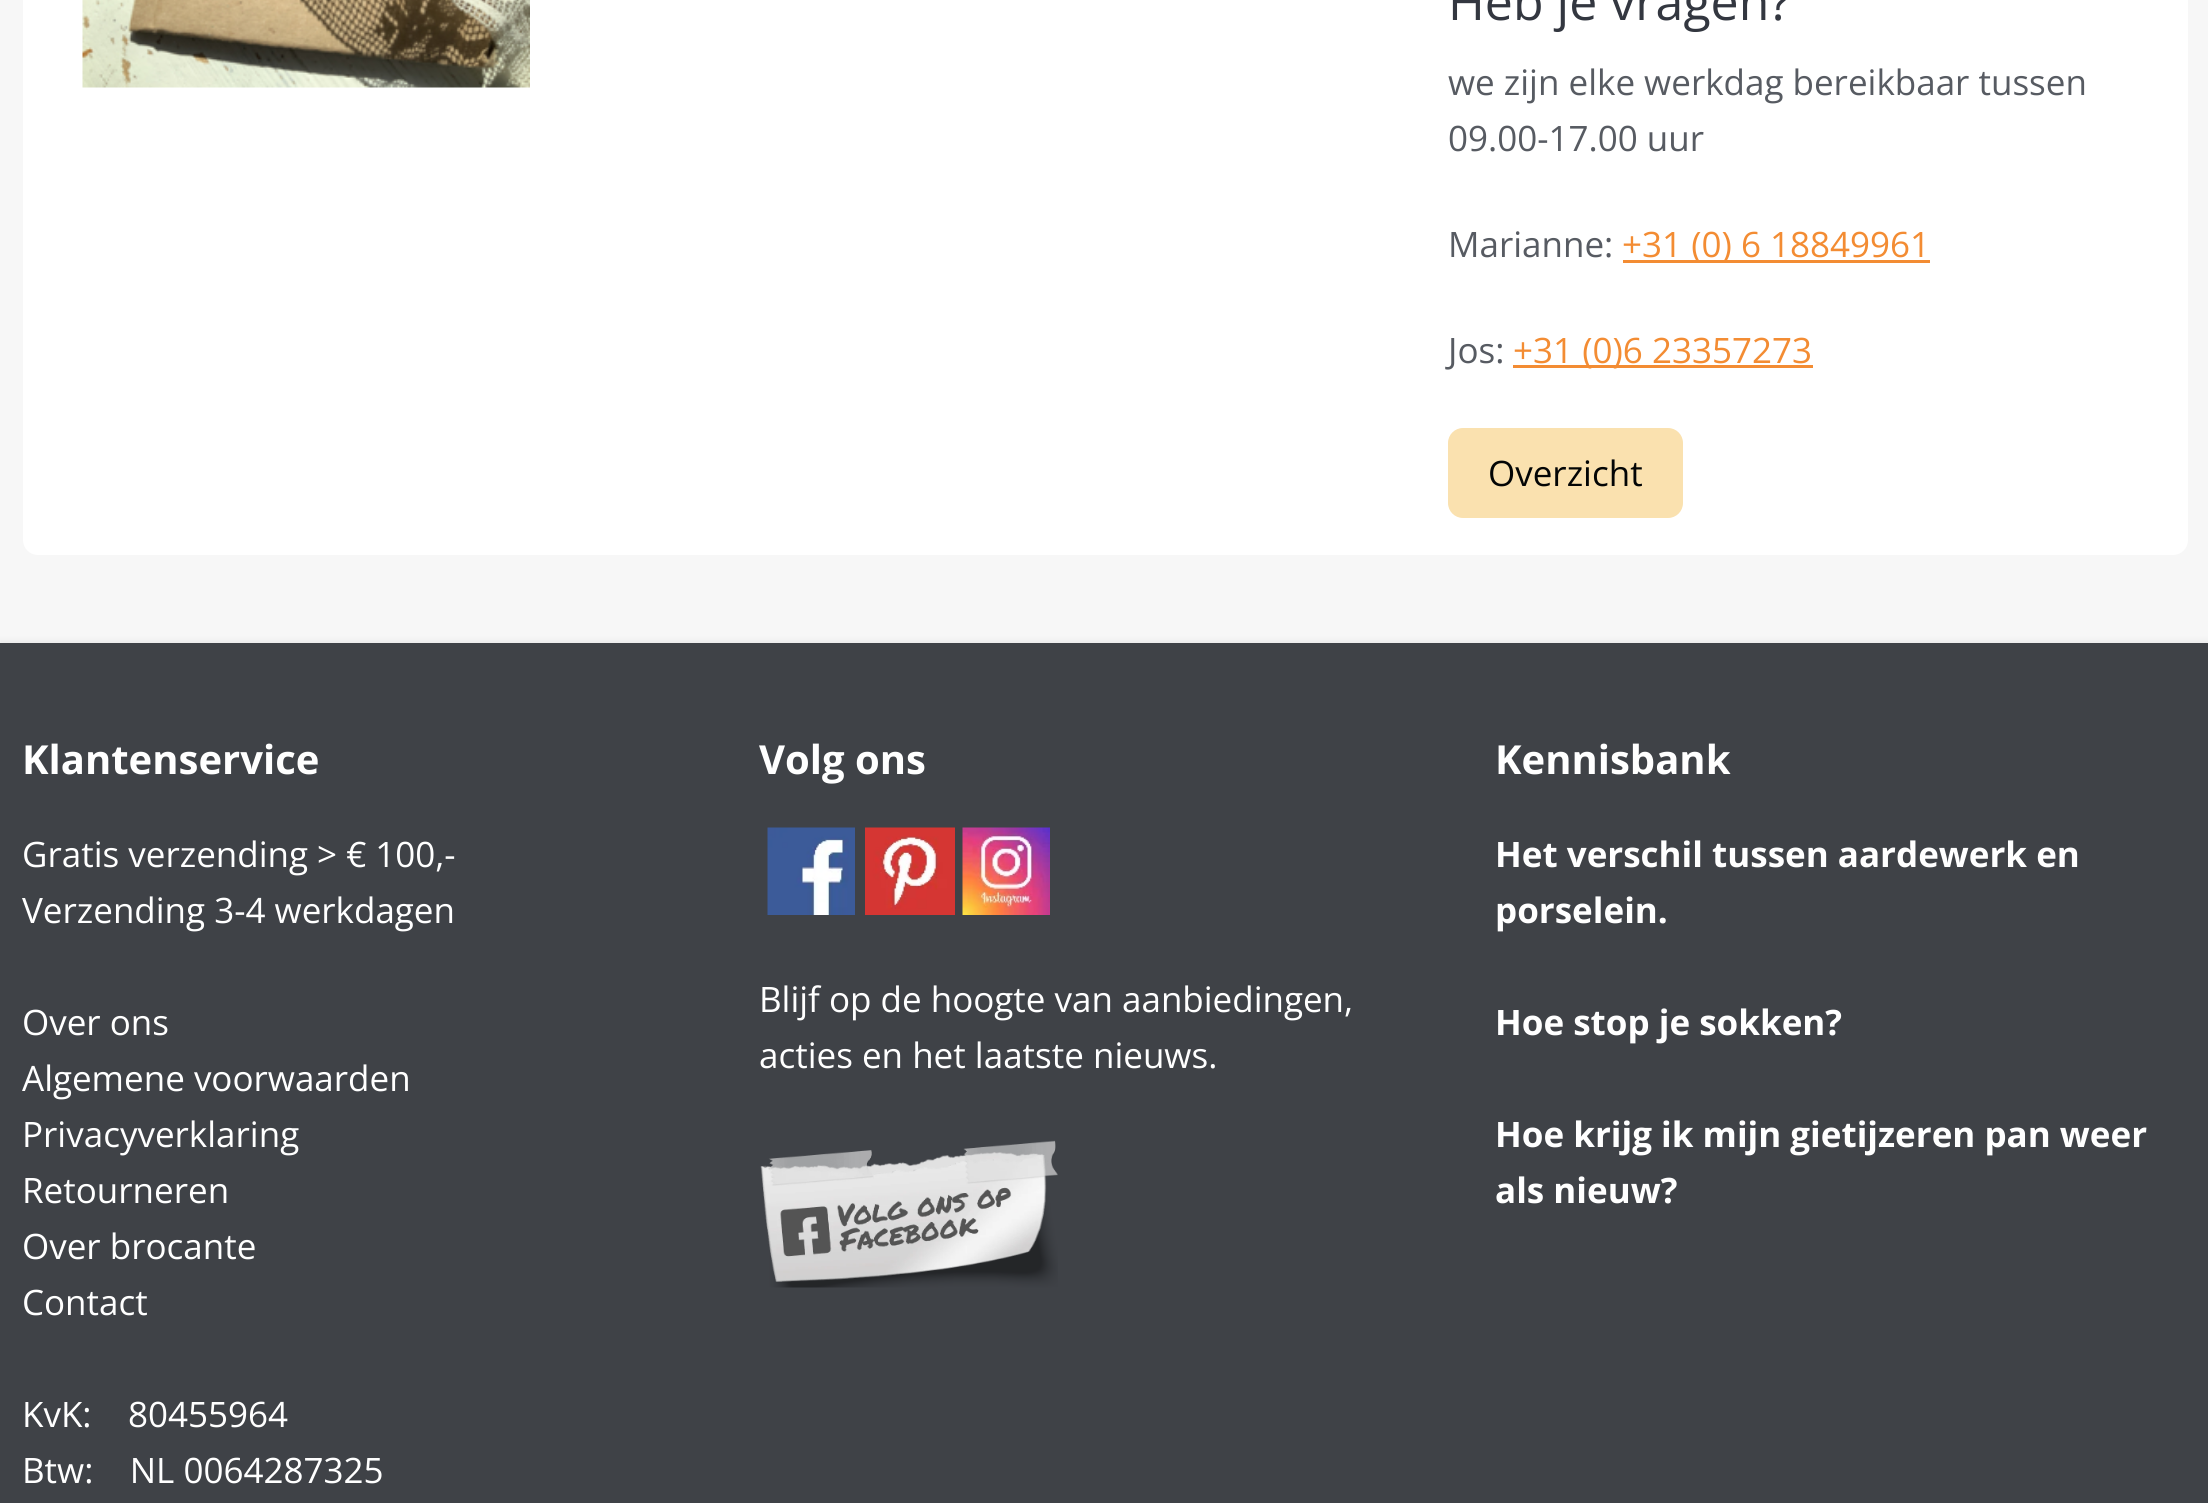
#include <cairo/cairo.h>
#include <math.h>
#include <stddef.h>

typedef struct { double x, y; const char *s; } line_t;
static cairo_t *cr;

static void rgb(unsigned color)
{
	cairo_set_source_rgb(cr, (color >> 16) / 255.0, (color >> 8 & 255) / 255.0, (color & 255) / 255.0);
}

static void rrect(double x, double y, double w, double h, double r)
{
	cairo_new_sub_path(cr);
	cairo_arc(cr, x + w - r, y + h - r, r, 0, M_PI / 2);
	cairo_arc(cr, x + r, y + h - r, r, M_PI / 2, M_PI);
	cairo_arc(cr, x + r, y + r, r, M_PI, 1.5 * M_PI);
	cairo_arc(cr, x + w - r, y + r, r, 1.5 * M_PI, 2 * M_PI);
	cairo_close_path(cr);
}

static void soft_shadow(double x, double y, double w, double h, double r, double blur, double alpha)
{
	cairo_push_group_with_content(cr, CAIRO_CONTENT_ALPHA);
	cairo_set_operator(cr, CAIRO_OPERATOR_SOURCE);
	for (int i = 15; i >= -15 && fmin(w, h) + blur * i / 3 > 0; i -= 2) {
		double e = blur * i / 6;
		cairo_set_source_rgba(cr, 0, 0, 0, alpha * erfc((i - 1) / 8.5) / 2);
		rrect(x - e, y - e, w + 2 * e, h + 2 * e, fmax(0, fmin(r + e + blur * .6, fmin(w, h) / 2 + e)));
		cairo_fill(cr);
	}
	cairo_pattern_t *soft = cairo_pop_group(cr);
	cairo_mask(cr, soft);
	cairo_pattern_destroy(soft);
}

static void image(const char *path, double x, double y, double w, double h)
{
	cairo_surface_t *image = cairo_image_surface_create_from_png(path);
	cairo_save(cr);
	cairo_set_source_surface(cr, image, x, y);
	cairo_rectangle(cr, x, y, w, h);
	cairo_fill(cr);
	cairo_restore(cr);
	cairo_surface_destroy(image);
}

int main(void) {
	cairo_surface_t *surface = cairo_image_surface_create(CAIRO_FORMAT_RGB24, 2208, 1503);
	cr = cairo_create(surface);
	cairo_font_options_t *options = cairo_font_options_create();
	cairo_font_options_set_hint_metrics(options, CAIRO_HINT_METRICS_OFF);
	cairo_font_options_set_hint_style(options, CAIRO_HINT_STYLE_NONE);
	cairo_set_font_options(cr, options);
	cairo_set_miter_limit(cr, 4);
	rgb(0xf7f7f7);
	cairo_paint(cr);
	rgb(0xffffff);
	rrect(23, -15, 2165, 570, 15);
	cairo_fill(cr);
	image("img/1.png", 82, 0, 448, 88);
	rgb(0xf38c33);
	cairo_rectangle(cr, 1623, 260, 307, 3);
	cairo_fill(cr);
	cairo_rectangle(cr, 1513, 365, 300, 3);
	cairo_fill(cr);
	rgb(0xfae1af);
	rrect(1448, 428, 235, 90, 15);
	cairo_fill(cr);
	rgb(0x000000);
	soft_shadow(0, 640, 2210, 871, 0, 2.5, 0.05);
	rgb(0x3f4247);
	cairo_rectangle(cr, 0, 643, 2208, 860);
	cairo_fill(cr);
	image("img/2.png", 767, 827, 88, 88);
	image("img/3.png", 865, 827, 90, 88);
	image("img/4.png", 962, 827, 88, 88);
	image("img/5.png", 760, 1140, 298, 148);
	cairo_select_font_face(cr, "Open Sans", CAIRO_FONT_SLANT_NORMAL, CAIRO_FONT_WEIGHT_NORMAL);
	cairo_set_font_size(cr, 50);
	rgb(0x333740);
	cairo_move_to(cr, 1448, 20);
	cairo_show_text(cr, "Heb je vragen?");
	cairo_set_font_size(cr, 35);
	rgb(0x575b62);
	{
		static const line_t items[] = {
			{1448, 95, "we zijn elke werkdag bereikbaar tussen"},
			{1448, 151, "09.00-17.00 uur"},
			{1448, 257, "Marianne:"},
		};
		for (size_t i = 0; i < sizeof items / sizeof *items; i++) {
			cairo_move_to(cr, items[i].x, items[i].y);
			cairo_show_text(cr, items[i].s);
		}
	}
	rgb(0xf38c33);
	cairo_move_to(cr, 1622, 257);
	cairo_show_text(cr, "+31 (0) 6 18849961");
	rgb(0x575b62);
	cairo_move_to(cr, 1448, 363);
	cairo_show_text(cr, "Jos:");
	rgb(0xf38c33);
	cairo_move_to(cr, 1513, 363);
	cairo_show_text(cr, "+31 (0)6 23357273");
	rgb(0x030505);
	cairo_move_to(cr, 1488, 486);
	cairo_show_text(cr, "Overzicht");
	cairo_select_font_face(cr, "Open Sans", CAIRO_FONT_SLANT_NORMAL, CAIRO_FONT_WEIGHT_BOLD);
	cairo_set_font_size(cr, 40);
	rgb(0xffffff);
	cairo_move_to(cr, 22, 774);
	cairo_show_text(cr, "Klantenservice");
	cairo_select_font_face(cr, "Open Sans", CAIRO_FONT_SLANT_NORMAL, CAIRO_FONT_WEIGHT_NORMAL);
	cairo_set_font_size(cr, 35);
	{
		static const line_t items[] = {
			{22, 867, "Gratis verzending > € 100,-"},
			{22, 923, "Verzending 3-4 werkdagen"},
			{22, 1035, "Over ons"},
			{22, 1091, "Algemene voorwaarden"},
			{22, 1147, "Privacyverklaring"},
			{22, 1203, "Retourneren"},
			{22, 1259, "Over brocante"},
			{22, 1315, "Contact"},
			{22, 1427, "KvK:    80455964"},
			{22, 1483, "Btw:    NL 0064287325"},
		};
		for (size_t i = 0; i < sizeof items / sizeof *items; i++) {
			cairo_move_to(cr, items[i].x, items[i].y);
			cairo_show_text(cr, items[i].s);
		}
	}
	cairo_select_font_face(cr, "Open Sans", CAIRO_FONT_SLANT_NORMAL, CAIRO_FONT_WEIGHT_BOLD);
	cairo_set_font_size(cr, 40);
	cairo_move_to(cr, 759, 774);
	cairo_show_text(cr, "Volg ons");
	cairo_select_font_face(cr, "Open Sans", CAIRO_FONT_SLANT_NORMAL, CAIRO_FONT_WEIGHT_NORMAL);
	cairo_set_font_size(cr, 35);
	cairo_move_to(cr, 759, 1012);
	cairo_show_text(cr, "Blijf op de hoogte van aanbiedingen,");
	cairo_move_to(cr, 759, 1068);
	cairo_show_text(cr, "acties en het laatste nieuws.");
	cairo_select_font_face(cr, "Open Sans", CAIRO_FONT_SLANT_NORMAL, CAIRO_FONT_WEIGHT_BOLD);
	cairo_set_font_size(cr, 40);
	cairo_move_to(cr, 1495, 774);
	cairo_show_text(cr, "Kennisbank");
	cairo_set_font_size(cr, 35);
	{
		static const line_t items[] = {
			{1495, 867, "Het verschil tussen aardewerk en"},
			{1495, 923, "porselein."},
			{1495, 1035, "Hoe stop je sokken?"},
			{1495, 1147, "Hoe krijg ik mijn gietijzeren pan weer"},
			{1495, 1203, "als nieuw?"},
		};
		for (size_t i = 0; i < sizeof items / sizeof *items; i++) {
			cairo_move_to(cr, items[i].x, items[i].y);
			cairo_show_text(cr, items[i].s);
		}
	}
	cairo_surface_write_to_png(surface, "page.png");
	cairo_font_options_destroy(options);
	cairo_destroy(cr);
	cairo_surface_destroy(surface);
	return 0;
}
